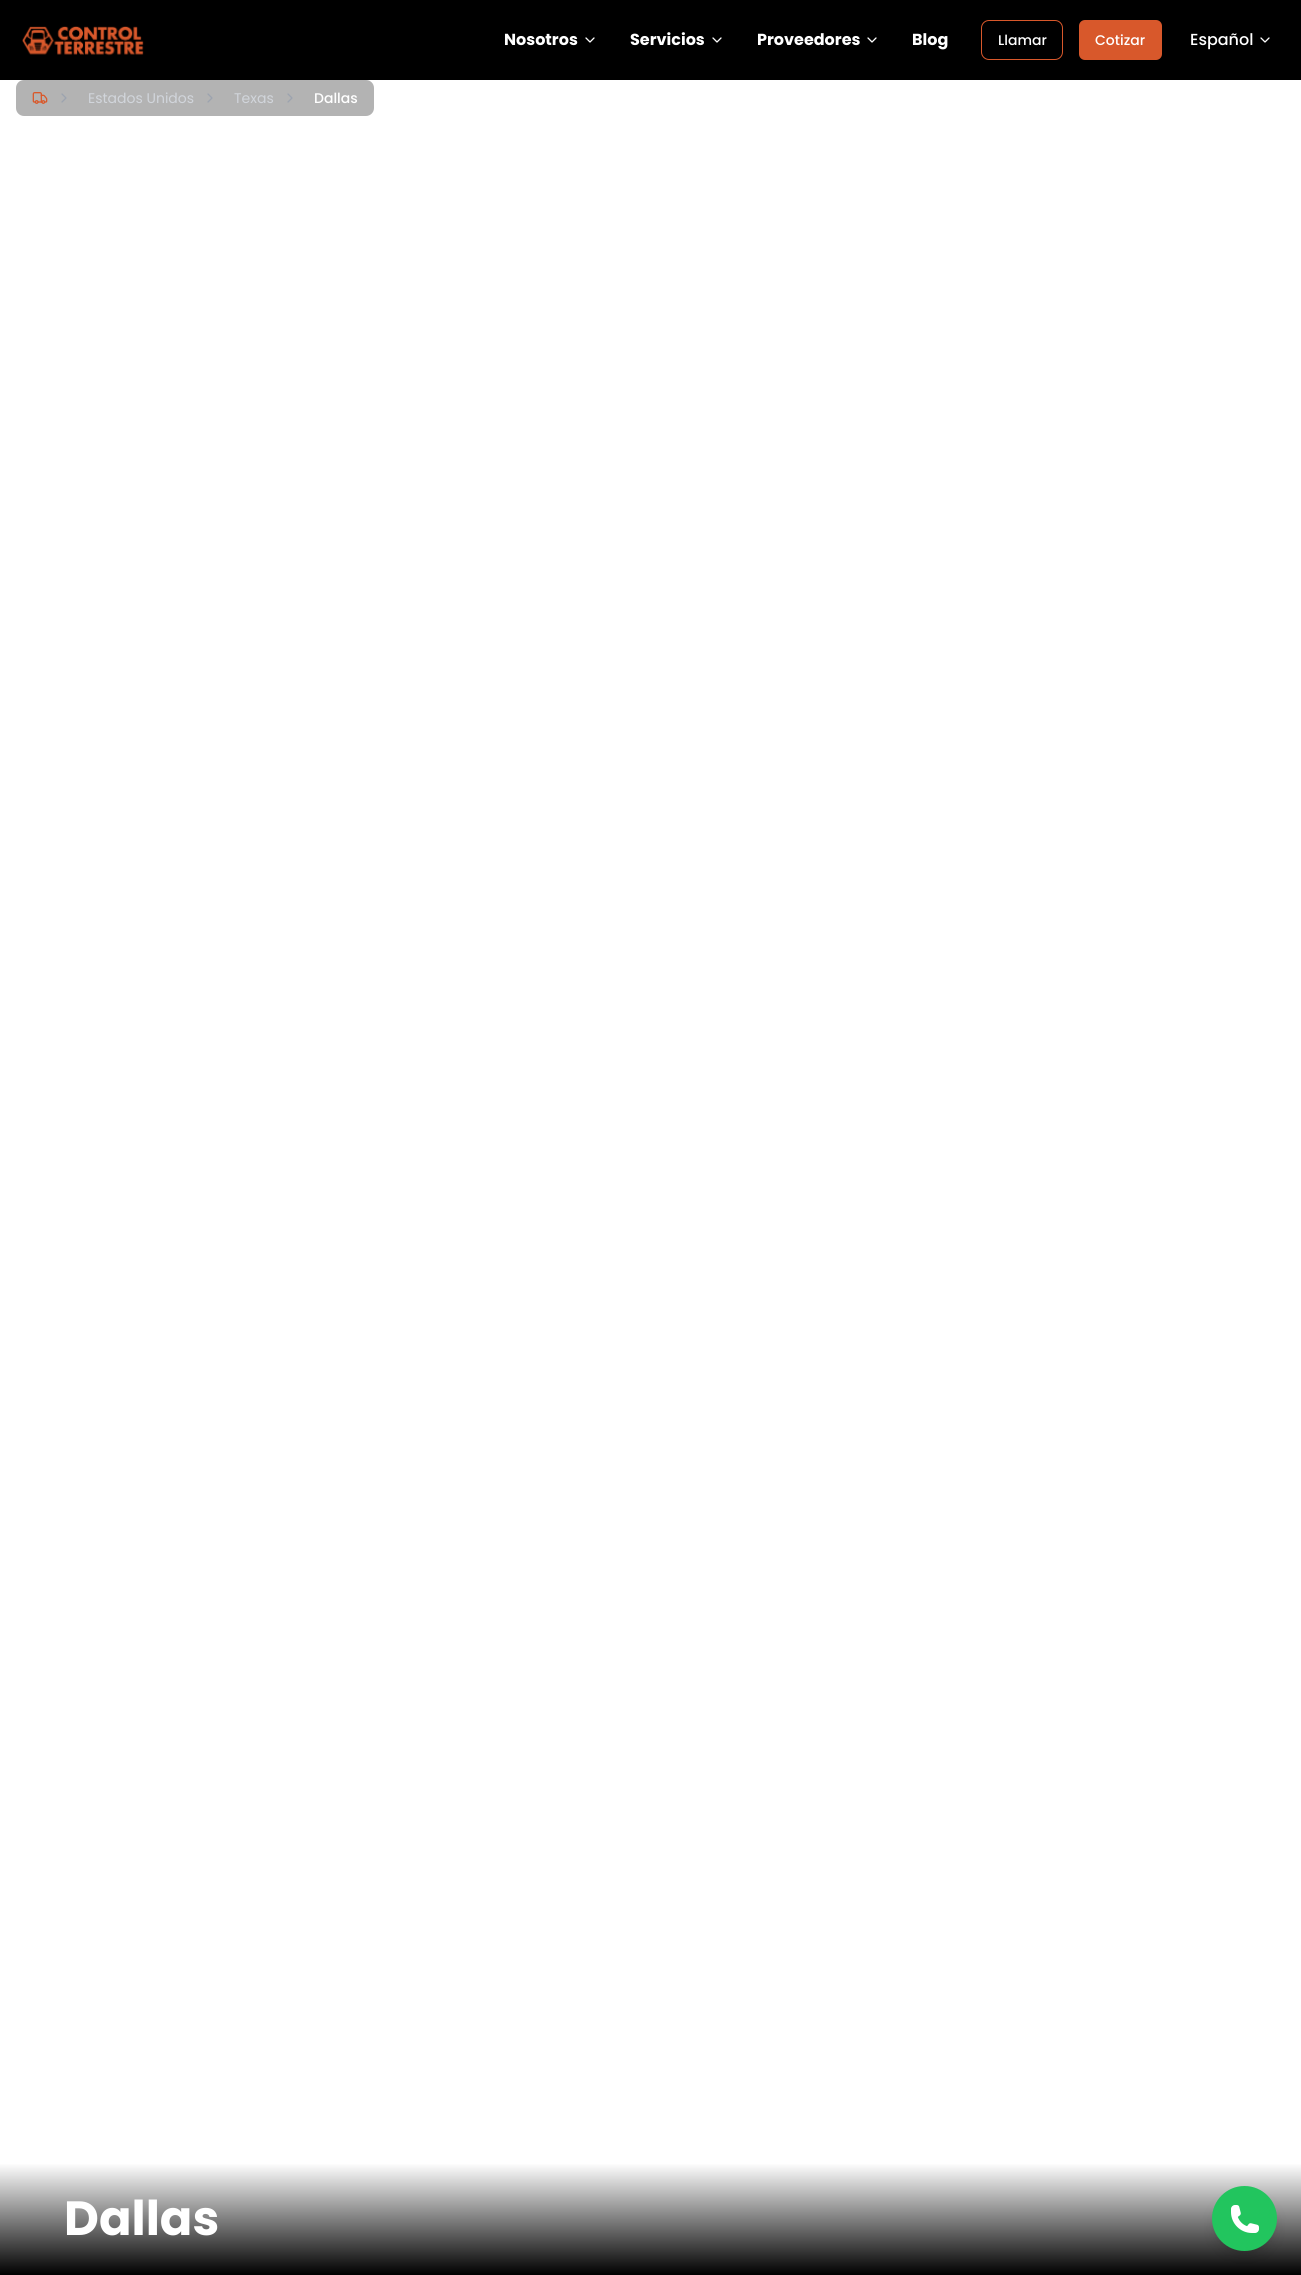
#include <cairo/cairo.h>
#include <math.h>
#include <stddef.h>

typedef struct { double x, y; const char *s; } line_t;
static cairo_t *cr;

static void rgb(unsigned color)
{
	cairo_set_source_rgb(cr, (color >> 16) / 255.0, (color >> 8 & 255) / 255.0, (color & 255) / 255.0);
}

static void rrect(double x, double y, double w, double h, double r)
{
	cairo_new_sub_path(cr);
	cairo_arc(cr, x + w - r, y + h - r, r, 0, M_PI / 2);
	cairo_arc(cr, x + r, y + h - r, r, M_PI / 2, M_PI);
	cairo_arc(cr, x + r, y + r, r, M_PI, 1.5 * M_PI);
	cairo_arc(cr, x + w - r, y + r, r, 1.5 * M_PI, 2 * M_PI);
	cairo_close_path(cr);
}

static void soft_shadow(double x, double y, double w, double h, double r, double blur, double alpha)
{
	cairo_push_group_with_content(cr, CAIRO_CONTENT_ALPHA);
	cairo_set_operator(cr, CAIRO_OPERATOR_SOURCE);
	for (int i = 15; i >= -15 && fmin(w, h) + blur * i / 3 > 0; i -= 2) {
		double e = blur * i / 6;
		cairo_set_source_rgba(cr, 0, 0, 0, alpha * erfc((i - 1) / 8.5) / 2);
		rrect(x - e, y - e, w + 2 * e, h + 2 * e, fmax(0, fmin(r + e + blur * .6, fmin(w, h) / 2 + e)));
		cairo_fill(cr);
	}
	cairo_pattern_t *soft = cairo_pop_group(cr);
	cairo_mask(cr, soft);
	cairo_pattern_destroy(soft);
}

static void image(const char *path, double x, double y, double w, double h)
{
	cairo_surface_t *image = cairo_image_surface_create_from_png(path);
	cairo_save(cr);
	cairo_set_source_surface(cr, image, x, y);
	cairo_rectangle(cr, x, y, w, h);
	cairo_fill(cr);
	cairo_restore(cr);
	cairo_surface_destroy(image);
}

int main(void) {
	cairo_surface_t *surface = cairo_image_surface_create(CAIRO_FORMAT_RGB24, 1301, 2275);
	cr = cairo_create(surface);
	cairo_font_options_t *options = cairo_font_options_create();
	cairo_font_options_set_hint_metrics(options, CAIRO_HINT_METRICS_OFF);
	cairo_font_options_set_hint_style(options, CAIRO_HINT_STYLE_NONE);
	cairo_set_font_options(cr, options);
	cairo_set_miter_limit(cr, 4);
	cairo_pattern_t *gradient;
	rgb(0xffffff);
	cairo_paint(cr);
	rgb(0x000000);
	cairo_rectangle(cr, 0, 0, 1301, 80);
	cairo_fill(cr);
	image("img/1.png", 22, 26, 122, 30);
	cairo_new_path(cr);
	cairo_move_to(cr, 586, 38);
	cairo_line_to(cr, 590, 42);
	cairo_line_to(cr, 594, 38);
	rgb(0xffffff);
	cairo_set_line_width(cr, 1.3);
	cairo_set_line_cap(cr, CAIRO_LINE_CAP_ROUND);
	cairo_set_line_join(cr, CAIRO_LINE_JOIN_ROUND);
	cairo_stroke(cr);
	cairo_new_path(cr);
	cairo_move_to(cr, 713, 38);
	cairo_line_to(cr, 717, 42);
	cairo_line_to(cr, 721, 38);
	cairo_stroke(cr);
	cairo_new_path(cr);
	cairo_move_to(cr, 868, 38);
	cairo_line_to(cr, 872, 42);
	cairo_line_to(cr, 876, 38);
	cairo_stroke(cr);
	rrect(981.5, 20.5, 81, 39, 7.5);
	rgb(0xd8582b);
	cairo_set_line_width(cr, 1);
	cairo_set_line_cap(cr, CAIRO_LINE_CAP_BUTT);
	cairo_set_line_join(cr, CAIRO_LINE_JOIN_MITER);
	cairo_stroke(cr);
	rrect(1079, 20, 83, 40, 6);
	cairo_fill(cr);
	cairo_new_path(cr);
	cairo_move_to(cr, 1261, 38);
	cairo_line_to(cr, 1265, 42);
	cairo_line_to(cr, 1269, 38);
	rgb(0xffffff);
	cairo_set_line_width(cr, 1.3);
	cairo_set_line_cap(cr, CAIRO_LINE_CAP_ROUND);
	cairo_set_line_join(cr, CAIRO_LINE_JOIN_ROUND);
	cairo_stroke(cr);
	rgb(0xb3b3b3);
	rrect(16, 80, 358, 36, 8);
	cairo_fill(cr);
	image("img/2.png", 32, 92, 16, 12);
	cairo_new_path(cr);
	cairo_move_to(cr, 62, 102);
	cairo_line_to(cr, 66, 98);
	cairo_line_to(cr, 62, 94);
	rgb(0x9ca3af);
	cairo_stroke(cr);
	cairo_new_path(cr);
	cairo_move_to(cr, 208, 102);
	cairo_line_to(cr, 212, 98);
	cairo_line_to(cr, 208, 94);
	cairo_stroke(cr);
	cairo_new_path(cr);
	cairo_move_to(cr, 288, 102);
	cairo_line_to(cr, 292, 98);
	cairo_line_to(cr, 288, 94);
	cairo_stroke(cr);
	gradient = cairo_pattern_create_linear(651, 2275, 651, 2163);
	cairo_pattern_add_color_stop_rgba(gradient, 0, 0, 0, 0, 1);
	cairo_pattern_add_color_stop_rgba(gradient, 1, 1, 1, 1, 1);
	cairo_set_source(cr, gradient);
	cairo_pattern_destroy(gradient);
	cairo_rectangle(cr, 0, 2164, 1301, 111);
	cairo_fill(cr);
	rgb(0x000000);
	soft_shadow(1216, 2194, 57, 57, 28.5, 3, 0.1);
	soft_shadow(1215, 2199, 59, 59, 29.5, 7.5, 0.1);
	rgb(0x22c55e);
	cairo_arc(cr, 1244.5, 2218.5, 32.5, 0, 2 * M_PI);
	cairo_fill(cr);
	image("img/3.png", 1231, 2205, 28, 28);
	cairo_select_font_face(cr, "Poppins", CAIRO_FONT_SLANT_NORMAL, CAIRO_FONT_WEIGHT_BOLD);
	cairo_set_font_size(cr, 16);
	rgb(0xffffff);
	{
		static const line_t items[] = {
			{504, 45, "Nosotros"},
			{630, 45, "Servicios"},
			{757, 45, "Proveedores"},
			{912, 45, "Blog"},
		};
		for (size_t i = 0; i < sizeof items / sizeof *items; i++) {
			cairo_move_to(cr, items[i].x, items[i].y);
			cairo_show_text(cr, items[i].s);
		}
	}
	cairo_select_font_face(cr, "Poppins Medium", CAIRO_FONT_SLANT_NORMAL, CAIRO_FONT_WEIGHT_NORMAL);
	cairo_set_font_size(cr, 14);
	cairo_move_to(cr, 998, 45);
	cairo_show_text(cr, "Llamar");
	cairo_move_to(cr, 1095, 45);
	cairo_show_text(cr, "Cotizar");
	cairo_set_font_size(cr, 16);
	cairo_move_to(cr, 1190, 45);
	cairo_show_text(cr, "Español");
	cairo_select_font_face(cr, "Poppins", CAIRO_FONT_SLANT_NORMAL, CAIRO_FONT_WEIGHT_NORMAL);
	cairo_set_font_size(cr, 14);
	rgb(0xd1d5db);
	cairo_move_to(cr, 88, 103);
	cairo_show_text(cr, "Estados Unidos");
	cairo_move_to(cr, 234, 103);
	cairo_show_text(cr, "Texas");
	cairo_select_font_face(cr, "Poppins Medium", CAIRO_FONT_SLANT_NORMAL, CAIRO_FONT_WEIGHT_NORMAL);
	rgb(0xffffff);
	cairo_move_to(cr, 314, 103);
	cairo_show_text(cr, "Dallas");
	cairo_select_font_face(cr, "Poppins", CAIRO_FONT_SLANT_NORMAL, CAIRO_FONT_WEIGHT_BOLD);
	cairo_set_font_size(cr, 48);
	cairo_move_to(cr, 64, 2235);
	cairo_show_text(cr, "Dallas");
	cairo_surface_write_to_png(surface, "page.png");
	cairo_font_options_destroy(options);
	cairo_destroy(cr);
	cairo_surface_destroy(surface);
	return 0;
}
